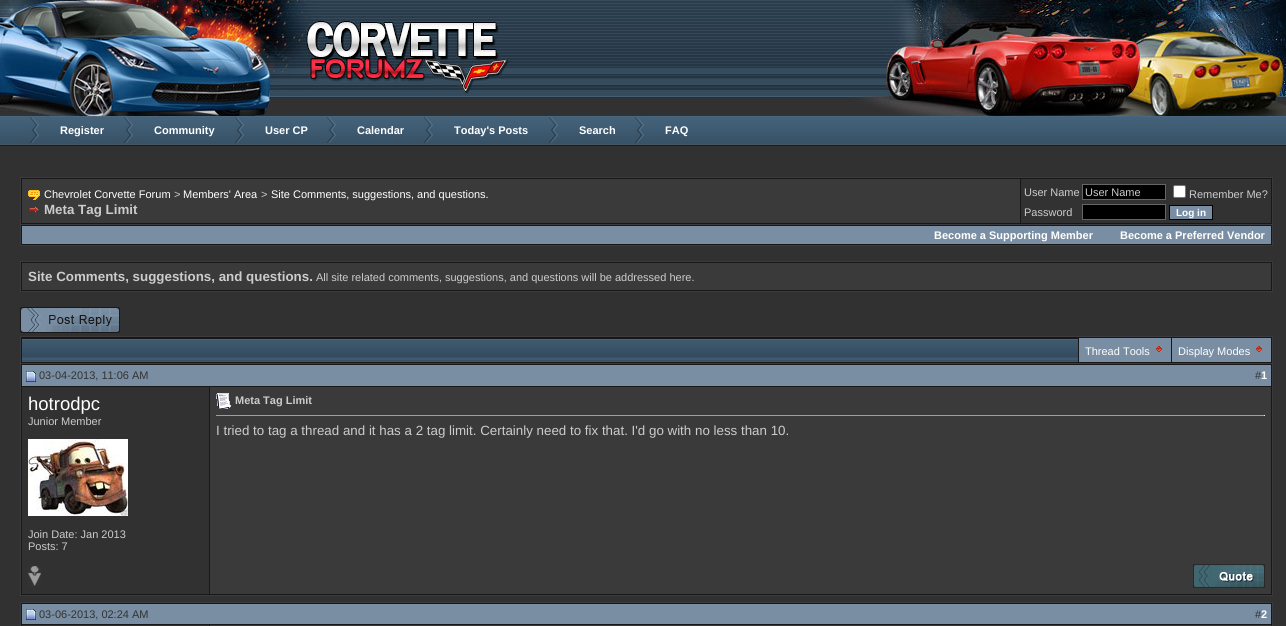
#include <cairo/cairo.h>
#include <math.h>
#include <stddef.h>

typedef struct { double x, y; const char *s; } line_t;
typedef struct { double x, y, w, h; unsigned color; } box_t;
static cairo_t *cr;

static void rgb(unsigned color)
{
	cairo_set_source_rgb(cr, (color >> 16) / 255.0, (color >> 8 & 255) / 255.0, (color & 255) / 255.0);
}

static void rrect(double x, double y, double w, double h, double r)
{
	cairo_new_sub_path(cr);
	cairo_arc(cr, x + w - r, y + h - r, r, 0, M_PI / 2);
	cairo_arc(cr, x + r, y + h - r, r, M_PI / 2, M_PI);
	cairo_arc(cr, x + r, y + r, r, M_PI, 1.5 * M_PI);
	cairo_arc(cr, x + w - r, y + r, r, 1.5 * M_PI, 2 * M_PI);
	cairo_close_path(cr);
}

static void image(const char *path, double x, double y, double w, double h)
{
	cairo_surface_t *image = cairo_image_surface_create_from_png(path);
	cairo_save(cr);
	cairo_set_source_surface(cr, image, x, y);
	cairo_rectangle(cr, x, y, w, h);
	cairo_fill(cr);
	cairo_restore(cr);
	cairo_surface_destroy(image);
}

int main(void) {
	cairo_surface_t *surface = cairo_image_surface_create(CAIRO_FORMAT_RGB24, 1286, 626);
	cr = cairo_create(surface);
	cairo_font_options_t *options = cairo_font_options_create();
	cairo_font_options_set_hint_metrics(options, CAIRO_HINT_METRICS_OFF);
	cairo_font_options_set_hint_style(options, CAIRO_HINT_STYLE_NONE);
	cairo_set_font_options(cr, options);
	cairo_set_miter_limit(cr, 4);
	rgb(0x313131);
	cairo_paint(cr);
	image("img/1.png", 512, 0, 342, 117);
	image("img/2.png", 854, 0, 432, 117);
	image("img/3.png", 0, 0, 512, 117);
	image("img/4.png", 0, 117, 1286, 29);
	image("img/5.png", 30, 117, 9, 26);
	image("img/5.png", 124, 117, 9, 26);
	image("img/5.png", 235, 117, 9, 26);
	image("img/5.png", 327, 117, 9, 26);
	image("img/5.png", 424, 117, 9, 26);
	image("img/5.png", 549, 117, 9, 26);
	image("img/5.png", 635, 117, 9, 26);
	rgb(0x181818);
	cairo_rectangle(cr, 20.5, 177.5, 1252, 47);
	cairo_fill_preserve(cr);
	rgb(0x3b3a3f);
	cairo_set_line_width(cr, 1);
	cairo_stroke(cr);
	rgb(0x3a3a3a);
	cairo_rectangle(cr, 22, 179, 998, 44);
	cairo_fill(cr);
	image("img/6.png", 28, 190, 12, 10);
	image("img/7.png", 29, 206, 10, 7);
	rgb(0x323232);
	cairo_rectangle(cr, 1021, 179, 250, 44);
	cairo_fill(cr);
	rgb(0x000000);
	cairo_rectangle(cr, 1082.5, 184.5, 83, 15);
	cairo_fill_preserve(cr);
	rgb(0x666666);
	cairo_stroke(cr);
	rgb(0xffffff);
	rrect(1173.5, 185.5, 12, 12, 1.5);
	cairo_fill_preserve(cr);
	rgb(0x767676);
	cairo_stroke(cr);
	rgb(0x000000);
	cairo_rectangle(cr, 1082.5, 204.5, 83, 15);
	cairo_fill_preserve(cr);
	rgb(0x666666);
	cairo_stroke(cr);
	rgb(0x798ea3);
	cairo_rectangle(cr, 1169.5, 205.5, 43, 14);
	cairo_fill_preserve(cr);
	rgb(0x000000);
	cairo_stroke(cr);
	{
		static const box_t items[] = {
			{21, 225, 1251, 20, 0x181818},
			{1272, 225, 1, 21, 0x3b3a3f},
			{20, 245, 1253, 1, 0x3b3a3f},
			{20, 225, 1, 21, 0x3b3a3f},
			{22, 226, 1249, 18, 0x798ea3},
		};
		for (size_t i = 0; i < sizeof items / sizeof *items; i++) {
			rgb(items[i].color);
			cairo_rectangle(cr, items[i].x, items[i].y, items[i].w, items[i].h);
			cairo_fill(cr);
		}
	}
	rgb(0x181818);
	cairo_rectangle(cr, 20.5, 261.5, 1252, 30);
	cairo_fill_preserve(cr);
	rgb(0x3b3a3f);
	cairo_stroke(cr);
	rgb(0x3a3a3a);
	cairo_rectangle(cr, 22, 263, 1249, 27);
	cairo_fill(cr);
	image("img/8.png", 20, 307, 100, 26);
	{
		static const box_t items[] = {
			{21, 337, 1251, 26, 0x181818},
			{20, 336, 1253, 1, 0x3b3a3f},
			{1272, 336, 1, 27, 0x3b3a3f},
			{20, 336, 1, 27, 0x3b3a3f},
			{22, 361, 1056, 1, 0x3f586c},
		};
		for (size_t i = 0; i < sizeof items / sizeof *items; i++) {
			rgb(items[i].color);
			cairo_rectangle(cr, items[i].x, items[i].y, items[i].w, items[i].h);
			cairo_fill(cr);
		}
	}
	image("img/9.png", 22, 338, 1056, 23);
	rgb(0x798ea3);
	cairo_rectangle(cr, 1079, 338, 92, 24);
	cairo_fill(cr);
	image("img/10.png", 1156, 346, 6, 6);
	cairo_rectangle(cr, 1172, 338, 99, 24);
	cairo_fill(cr);
	image("img/10.png", 1256, 346, 6, 6);
	cairo_rectangle(cr, 20.5, 363.5, 1252, 232);
	rgb(0x3b3a3f);
	cairo_stroke(cr);
	{
		static const box_t items[] = {
			{22, 365, 1249, 21, 0x798ea3},
			{21, 364, 1251, 1, 0x181818},
			{21, 386, 189, 1, 0x181818},
			{21, 364, 1, 194, 0x181818},
		};
		for (size_t i = 0; i < sizeof items / sizeof *items; i++) {
			rgb(items[i].color);
			cairo_rectangle(cr, items[i].x, items[i].y, items[i].w, items[i].h);
			cairo_fill(cr);
		}
	}
	image("img/11.png", 26, 371, 10, 11);
	{
		static const box_t items[] = {
			{1271, 364, 1, 231, 0x181818},
			{210, 386, 1062, 1, 0x181818},
			{209, 387, 1, 208, 0x181818},
		};
		for (size_t i = 0; i < sizeof items / sizeof *items; i++) {
			rgb(items[i].color);
			cairo_rectangle(cr, items[i].x, items[i].y, items[i].w, items[i].h);
			cairo_fill(cr);
		}
	}
	image("img/12.png", 28, 439, 100, 77);
	rgb(0x3a3a3a);
	cairo_rectangle(cr, 210, 387, 1061, 207);
	cairo_fill(cr);
	image("img/13.png", 216, 393, 15, 16);
	{
		static const box_t items[] = {
			{216, 415, 1049, 1, 0x9f9f9f},
			{1264, 415, 1, 1, 0xeeeeee},
			{21, 594, 1251, 1, 0x181818},
			{21, 558, 1, 37, 0x181818},
		};
		for (size_t i = 0; i < sizeof items / sizeof *items; i++) {
			rgb(items[i].color);
			cairo_rectangle(cr, items[i].x, items[i].y, items[i].w, items[i].h);
			cairo_fill(cr);
		}
	}
	image("img/14.png", 28, 566, 13, 20);
	image("img/15.png", 1193, 564, 72, 24);
	cairo_rectangle(cr, 20.5, 602.5, 1252, 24);
	rgb(0x3b3a3f);
	cairo_stroke(cr);
	{
		static const box_t items[] = {
			{22, 604, 1249, 20, 0x798ea3},
			{21, 603, 1251, 1, 0x181818},
			{21, 624, 189, 1, 0x181818},
			{21, 603, 1, 23, 0x181818},
		};
		for (size_t i = 0; i < sizeof items / sizeof *items; i++) {
			rgb(items[i].color);
			cairo_rectangle(cr, items[i].x, items[i].y, items[i].w, items[i].h);
			cairo_fill(cr);
		}
	}
	image("img/11.png", 26, 609, 10, 11);
	{
		static const box_t items[] = {
			{1271, 603, 1, 22, 0x181818},
			{210, 624, 1062, 1, 0x181818},
			{209, 625, 1, 1, 0x181818},
			{210, 625, 1062, 1, 0x3a3a3a},
			{1271, 625, 1, 1, 0x181818},
		};
		for (size_t i = 0; i < sizeof items / sizeof *items; i++) {
			rgb(items[i].color);
			cairo_rectangle(cr, items[i].x, items[i].y, items[i].w, items[i].h);
			cairo_fill(cr);
		}
	}
	cairo_select_font_face(cr, "Liberation Sans", CAIRO_FONT_SLANT_NORMAL, CAIRO_FONT_WEIGHT_BOLD);
	cairo_set_font_size(cr, 11);
	rgb(0xffffff);
	{
		static const line_t items[] = {
			{60, 134, "Register"},
			{154, 134, "Community"},
			{265, 134, "User CP"},
			{357, 134, "Calendar"},
			{454, 134, "Today's Posts"},
			{579, 134, "Search"},
			{665, 134, "FAQ"},
		};
		for (size_t i = 0; i < sizeof items / sizeof *items; i++) {
			cairo_move_to(cr, items[i].x, items[i].y);
			cairo_show_text(cr, items[i].s);
		}
	}
	cairo_select_font_face(cr, "Liberation Sans", CAIRO_FONT_SLANT_NORMAL, CAIRO_FONT_WEIGHT_NORMAL);
	cairo_move_to(cr, 44, 198);
	cairo_show_text(cr, "Chevrolet Corvette Forum");
	rgb(0xcccccc);
	cairo_move_to(cr, 174, 198);
	cairo_show_text(cr, ">");
	rgb(0xffffff);
	cairo_move_to(cr, 183, 198);
	cairo_show_text(cr, "Members' Area");
	rgb(0xcccccc);
	cairo_move_to(cr, 261, 198);
	cairo_show_text(cr, ">");
	rgb(0xffffff);
	cairo_move_to(cr, 271, 198);
	cairo_show_text(cr, "Site Comments, suggestions, and questions.");
	cairo_select_font_face(cr, "Liberation Sans", CAIRO_FONT_SLANT_NORMAL, CAIRO_FONT_WEIGHT_BOLD);
	cairo_set_font_size(cr, 13.35);
	rgb(0xcccccc);
	cairo_move_to(cr, 44, 214);
	cairo_show_text(cr, "Meta Tag Limit");
	cairo_select_font_face(cr, "Liberation Sans", CAIRO_FONT_SLANT_NORMAL, CAIRO_FONT_WEIGHT_NORMAL);
	cairo_set_font_size(cr, 11);
	{
		static const line_t items[] = {
			{1024, 196, "User Name"},
			{1085, 196, "User Name"},
			{1189, 198, "Remember Me?"},
			{1024, 216, "Password"},
		};
		for (size_t i = 0; i < sizeof items / sizeof *items; i++) {
			cairo_move_to(cr, items[i].x, items[i].y);
			cairo_show_text(cr, items[i].s);
		}
	}
	cairo_select_font_face(cr, "Liberation Sans", CAIRO_FONT_SLANT_NORMAL, CAIRO_FONT_WEIGHT_BOLD);
	cairo_set_font_size(cr, 10);
	rgb(0xffffff);
	cairo_move_to(cr, 1176, 216);
	cairo_show_text(cr, "Log in");
	cairo_set_font_size(cr, 11);
	cairo_move_to(cr, 934, 239);
	cairo_show_text(cr, "Become a Supporting Member");
	cairo_move_to(cr, 1120, 239);
	cairo_show_text(cr, "Become a Preferred Vendor");
	cairo_set_font_size(cr, 13.35);
	rgb(0xcccccc);
	cairo_move_to(cr, 28, 281);
	cairo_show_text(cr, "Site Comments, suggestions, and questions.");
	cairo_select_font_face(cr, "Liberation Sans", CAIRO_FONT_SLANT_NORMAL, CAIRO_FONT_WEIGHT_NORMAL);
	cairo_set_font_size(cr, 11);
	cairo_move_to(cr, 316, 281);
	cairo_show_text(cr, "All site related comments, suggestions, and questions will be addressed here.");
	rgb(0xffffff);
	cairo_move_to(cr, 1085, 355);
	cairo_show_text(cr, "Thread Tools");
	cairo_move_to(cr, 1178, 355);
	cairo_show_text(cr, "Display Modes");
	rgb(0x323232);
	cairo_move_to(cr, 39, 379);
	cairo_show_text(cr, "03-04-2013, 11:06 AM");
	cairo_move_to(cr, 1255, 379);
	cairo_show_text(cr, "#");
	cairo_select_font_face(cr, "Liberation Sans", CAIRO_FONT_SLANT_NORMAL, CAIRO_FONT_WEIGHT_BOLD);
	rgb(0xffffff);
	cairo_move_to(cr, 1261, 379);
	cairo_show_text(cr, "1");
	cairo_select_font_face(cr, "Liberation Sans", CAIRO_FONT_SLANT_NORMAL, CAIRO_FONT_WEIGHT_NORMAL);
	cairo_set_font_size(cr, 18.5);
	cairo_move_to(cr, 28, 410);
	cairo_show_text(cr, "hotrodpc");
	cairo_set_font_size(cr, 11);
	rgb(0xcccccc);
	{
		static const line_t items[] = {
			{28, 425, "Junior Member"},
			{28, 538, "Join Date: Jan 2013"},
			{28, 550, "Posts: 7"},
		};
		for (size_t i = 0; i < sizeof items / sizeof *items; i++) {
			cairo_move_to(cr, items[i].x, items[i].y);
			cairo_show_text(cr, items[i].s);
		}
	}
	cairo_select_font_face(cr, "Liberation Sans", CAIRO_FONT_SLANT_NORMAL, CAIRO_FONT_WEIGHT_BOLD);
	cairo_move_to(cr, 235, 404);
	cairo_show_text(cr, "Meta Tag Limit");
	cairo_select_font_face(cr, "Liberation Sans", CAIRO_FONT_SLANT_NORMAL, CAIRO_FONT_WEIGHT_NORMAL);
	cairo_set_font_size(cr, 13.35);
	cairo_move_to(cr, 216, 435);
	cairo_show_text(cr, "I tried to tag a thread and it has a 2 tag limit. Certainly need to fix that. I'd go with no less than 10.");
	cairo_set_font_size(cr, 11);
	rgb(0x323232);
	cairo_move_to(cr, 39, 618);
	cairo_show_text(cr, "03-06-2013, 02:24 AM");
	cairo_move_to(cr, 1255, 618);
	cairo_show_text(cr, "#");
	cairo_select_font_face(cr, "Liberation Sans", CAIRO_FONT_SLANT_NORMAL, CAIRO_FONT_WEIGHT_BOLD);
	rgb(0xffffff);
	cairo_move_to(cr, 1261, 618);
	cairo_show_text(cr, "2");
	cairo_surface_write_to_png(surface, "page.png");
	cairo_font_options_destroy(options);
	cairo_destroy(cr);
	cairo_surface_destroy(surface);
	return 0;
}
